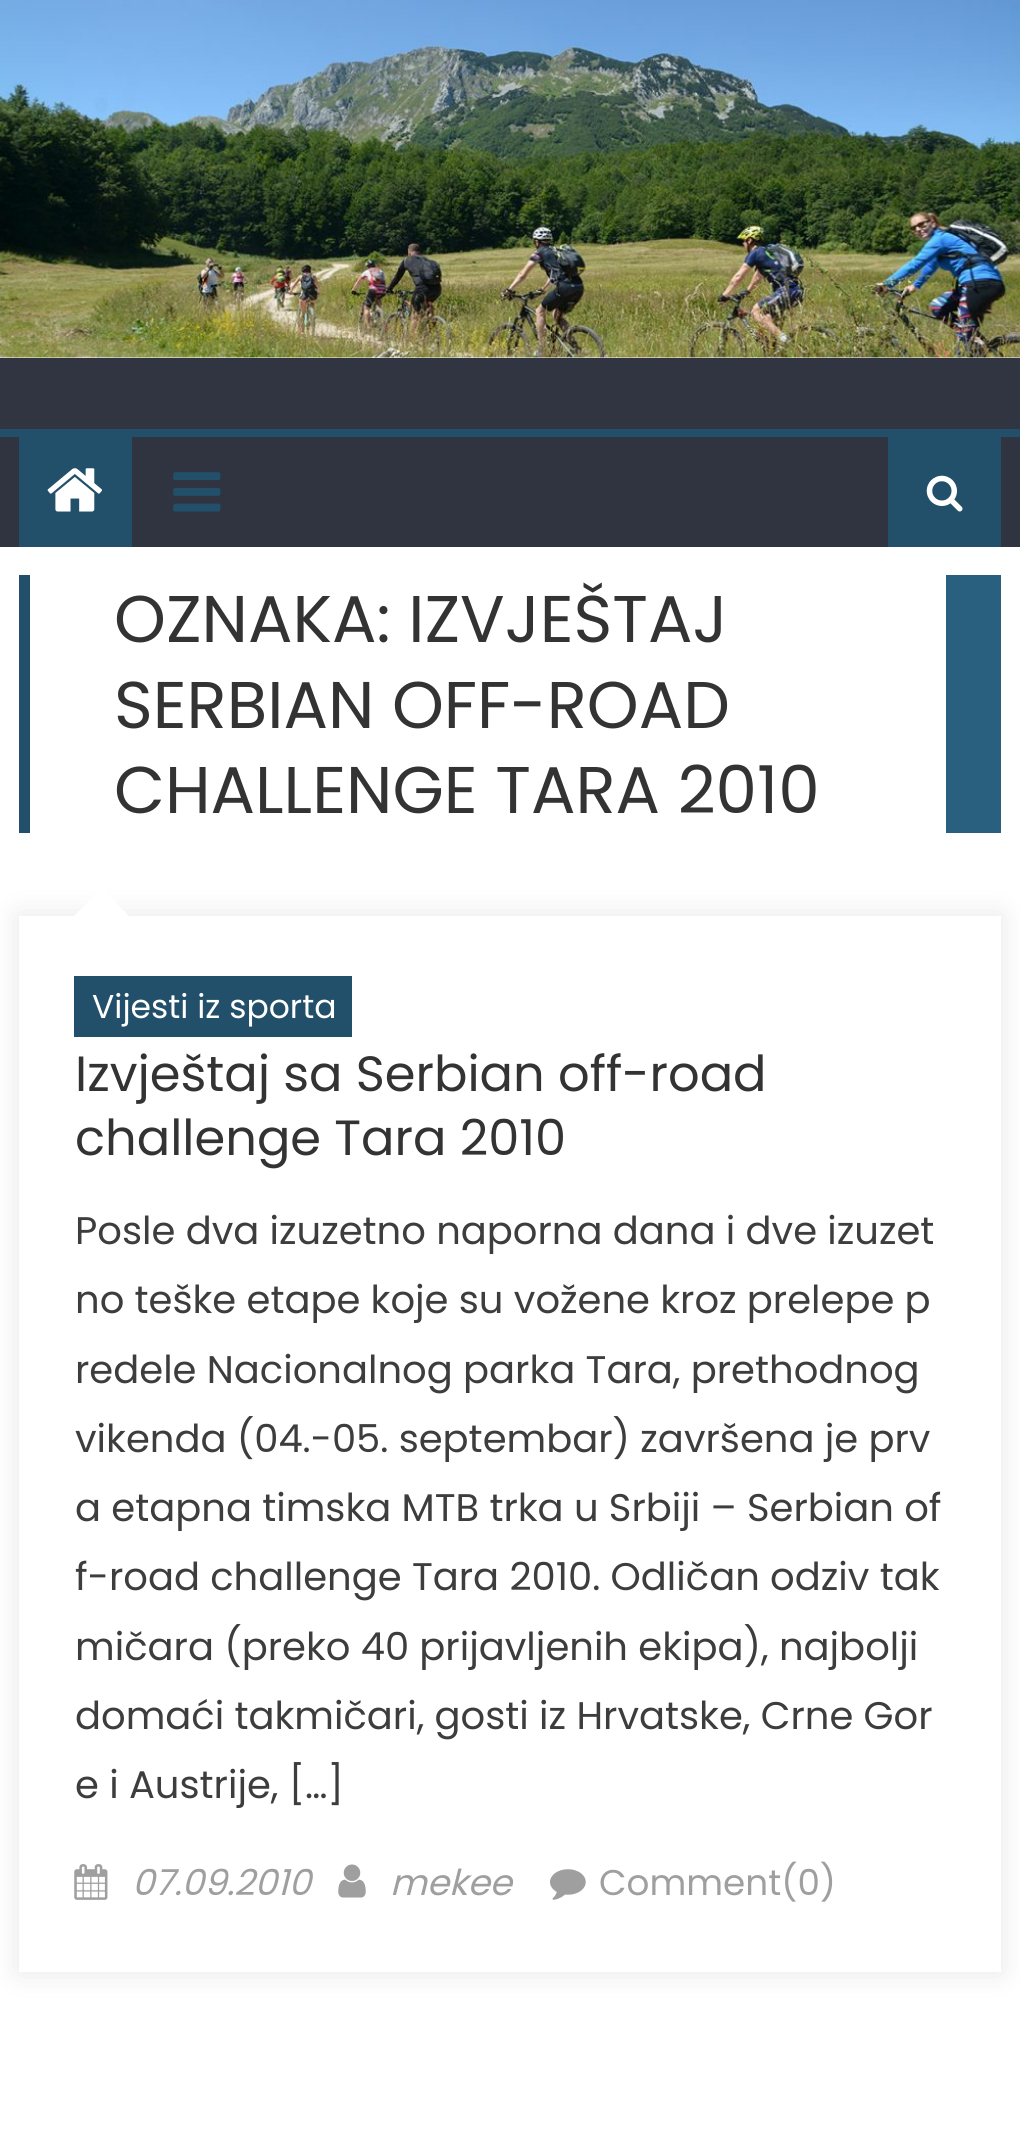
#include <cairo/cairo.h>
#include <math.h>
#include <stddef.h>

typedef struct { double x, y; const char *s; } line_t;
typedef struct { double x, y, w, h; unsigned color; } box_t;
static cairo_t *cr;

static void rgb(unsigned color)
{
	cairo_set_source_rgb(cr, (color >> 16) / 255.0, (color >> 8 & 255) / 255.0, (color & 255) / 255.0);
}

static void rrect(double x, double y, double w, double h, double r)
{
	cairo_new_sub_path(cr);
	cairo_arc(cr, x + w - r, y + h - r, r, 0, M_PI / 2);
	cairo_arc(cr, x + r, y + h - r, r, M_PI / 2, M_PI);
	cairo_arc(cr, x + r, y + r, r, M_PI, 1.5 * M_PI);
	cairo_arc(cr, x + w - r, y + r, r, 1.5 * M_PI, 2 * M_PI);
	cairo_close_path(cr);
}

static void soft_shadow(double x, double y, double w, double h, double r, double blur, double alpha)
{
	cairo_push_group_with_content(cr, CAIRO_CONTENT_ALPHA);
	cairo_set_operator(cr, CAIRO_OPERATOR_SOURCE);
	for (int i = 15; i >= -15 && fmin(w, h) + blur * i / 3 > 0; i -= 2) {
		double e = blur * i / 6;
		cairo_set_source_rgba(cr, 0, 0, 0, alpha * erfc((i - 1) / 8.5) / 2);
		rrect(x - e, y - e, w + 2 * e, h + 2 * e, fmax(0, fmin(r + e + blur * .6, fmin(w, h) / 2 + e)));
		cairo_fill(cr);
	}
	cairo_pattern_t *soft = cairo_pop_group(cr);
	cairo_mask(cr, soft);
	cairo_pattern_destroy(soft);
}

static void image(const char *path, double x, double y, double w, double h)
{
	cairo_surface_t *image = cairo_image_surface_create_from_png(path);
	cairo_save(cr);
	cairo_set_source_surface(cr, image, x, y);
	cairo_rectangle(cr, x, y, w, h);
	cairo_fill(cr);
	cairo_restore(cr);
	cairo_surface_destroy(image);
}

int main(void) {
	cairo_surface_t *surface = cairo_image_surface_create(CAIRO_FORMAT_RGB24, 1020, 2154);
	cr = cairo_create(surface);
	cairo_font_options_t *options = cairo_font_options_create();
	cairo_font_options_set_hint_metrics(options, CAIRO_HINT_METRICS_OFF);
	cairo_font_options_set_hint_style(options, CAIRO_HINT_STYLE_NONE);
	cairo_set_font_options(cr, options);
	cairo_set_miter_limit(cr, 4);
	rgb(0xffffff);
	cairo_paint(cr);
	image("img/1.png", 0, 0, 1020, 358);
	{
		static const box_t items[] = {
			{0, 358, 1020, 71, 0x313541},
			{0, 437, 1020, 110, 0x303440},
			{0, 429, 1020, 8, 0x22506b},
			{19, 437, 113, 110, 0x22506b},
		};
		for (size_t i = 0; i < sizeof items / sizeof *items; i++) {
			rgb(items[i].color);
			cairo_rectangle(cr, items[i].x, items[i].y, items[i].w, items[i].h);
			cairo_fill(cr);
		}
	}
	image("img/2.png", 47, 468, 55, 44);
	image("img/3.png", 173, 472, 48, 40);
	cairo_rectangle(cr, 888, 437, 113, 110);
	cairo_fill(cr);
	image("img/4.png", 926, 475, 37, 37);
	rgb(0x296080);
	cairo_rectangle(cr, 946, 575, 55, 258);
	cairo_fill(cr);
	rgb(0x22506b);
	cairo_rectangle(cr, 19, 575, 11, 258);
	cairo_fill(cr);
	cairo_save(cr);
	cairo_set_fill_rule(cr, CAIRO_FILL_RULE_EVEN_ODD);
	cairo_new_path(cr);
	cairo_move_to(cr, 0, 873);
	cairo_line_to(cr, 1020, 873);
	cairo_line_to(cr, 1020, 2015);
	cairo_line_to(cr, 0, 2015);
	cairo_close_path(cr);
	cairo_move_to(cr, 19, 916);
	cairo_line_to(cr, 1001, 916);
	cairo_line_to(cr, 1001, 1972);
	cairo_line_to(cr, 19, 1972);
	cairo_close_path(cr);
	cairo_clip(cr);
	rgb(0x000000);
	soft_shadow(19, 916, 982, 1056, 0, 14, 0.1);
	cairo_restore(cr);
	rgb(0xffffff);
	cairo_new_path(cr);
	cairo_move_to(cr, 129, 916);
	cairo_line_to(cr, 74, 916);
	cairo_line_to(cr, 102, 888);
	cairo_close_path(cr);
	cairo_fill(cr);
	rgb(0x22506b);
	cairo_rectangle(cr, 74, 976, 278, 61);
	cairo_fill(cr);
	image("img/5.png", 74, 1864, 34, 36);
	image("img/6.png", 338, 1864, 28, 34);
	image("img/7.png", 550, 1869, 36, 31);
	cairo_select_font_face(cr, "Poppins", CAIRO_FONT_SLANT_NORMAL, CAIRO_FONT_WEIGHT_NORMAL);
	cairo_set_font_size(cr, 66);
	rgb(0x333333);
	{
		static const line_t items[] = {
			{114, 642, "OZNAKA: IZVJEŠTAJ"},
			{114, 728, "SERBIAN OFF-ROAD"},
			{114, 813, "CHALLENGE TARA 2010"},
		};
		for (size_t i = 0; i < sizeof items / sizeof *items; i++) {
			cairo_move_to(cr, items[i].x, items[i].y);
			cairo_show_text(cr, items[i].s);
		}
	}
	cairo_set_font_size(cr, 33);
	rgb(0xffffff);
	cairo_move_to(cr, 92, 1018);
	cairo_show_text(cr, "Vijesti iz sporta");
	cairo_set_font_size(cr, 49.5);
	rgb(0x333333);
	cairo_move_to(cr, 75, 1091);
	cairo_show_text(cr, "Izvještaj sa Serbian off-road");
	cairo_move_to(cr, 75, 1155);
	cairo_show_text(cr, "challenge Tara 2010");
	cairo_set_font_size(cr, 38.5);
	rgb(0x3d3d3d);
	{
		static const line_t items[] = {
			{75, 1244, "Posle dva izuzetno naporna dana i dve izuzet"},
			{75, 1313, "no teške etape koje su vožene kroz prelepe p"},
			{75, 1383, "redele Nacionalnog parka Tara, prethodnog"},
			{75, 1452, "vikenda (04.-05. septembar) završena je prv"},
			{75, 1521, "a etapna timska MTB trka u Srbiji – Serbian of"},
			{75, 1590, "f-road challenge Tara 2010. Odličan odziv tak"},
			{75, 1660, "mičara (preko 40 prijavljenih ekipa), najbolji"},
			{75, 1729, "domaći takmičari, gosti iz Hrvatske, Crne Gor"},
			{75, 1798, "e i Austrije, […]"},
		};
		for (size_t i = 0; i < sizeof items / sizeof *items; i++) {
			cairo_move_to(cr, items[i].x, items[i].y);
			cairo_show_text(cr, items[i].s);
		}
	}
	cairo_select_font_face(cr, "Poppins", CAIRO_FONT_SLANT_ITALIC, CAIRO_FONT_WEIGHT_NORMAL);
	cairo_set_font_size(cr, 35.75);
	rgb(0x9f9f9f);
	cairo_move_to(cr, 132, 1895);
	cairo_show_text(cr, "07.09.2010");
	cairo_move_to(cr, 390, 1895);
	cairo_show_text(cr, "mekee");
	cairo_select_font_face(cr, "Poppins", CAIRO_FONT_SLANT_NORMAL, CAIRO_FONT_WEIGHT_NORMAL);
	cairo_move_to(cr, 599, 1895);
	cairo_show_text(cr, "Comment(0)");
	cairo_surface_write_to_png(surface, "page.png");
	cairo_font_options_destroy(options);
	cairo_destroy(cr);
	cairo_surface_destroy(surface);
	return 0;
}
